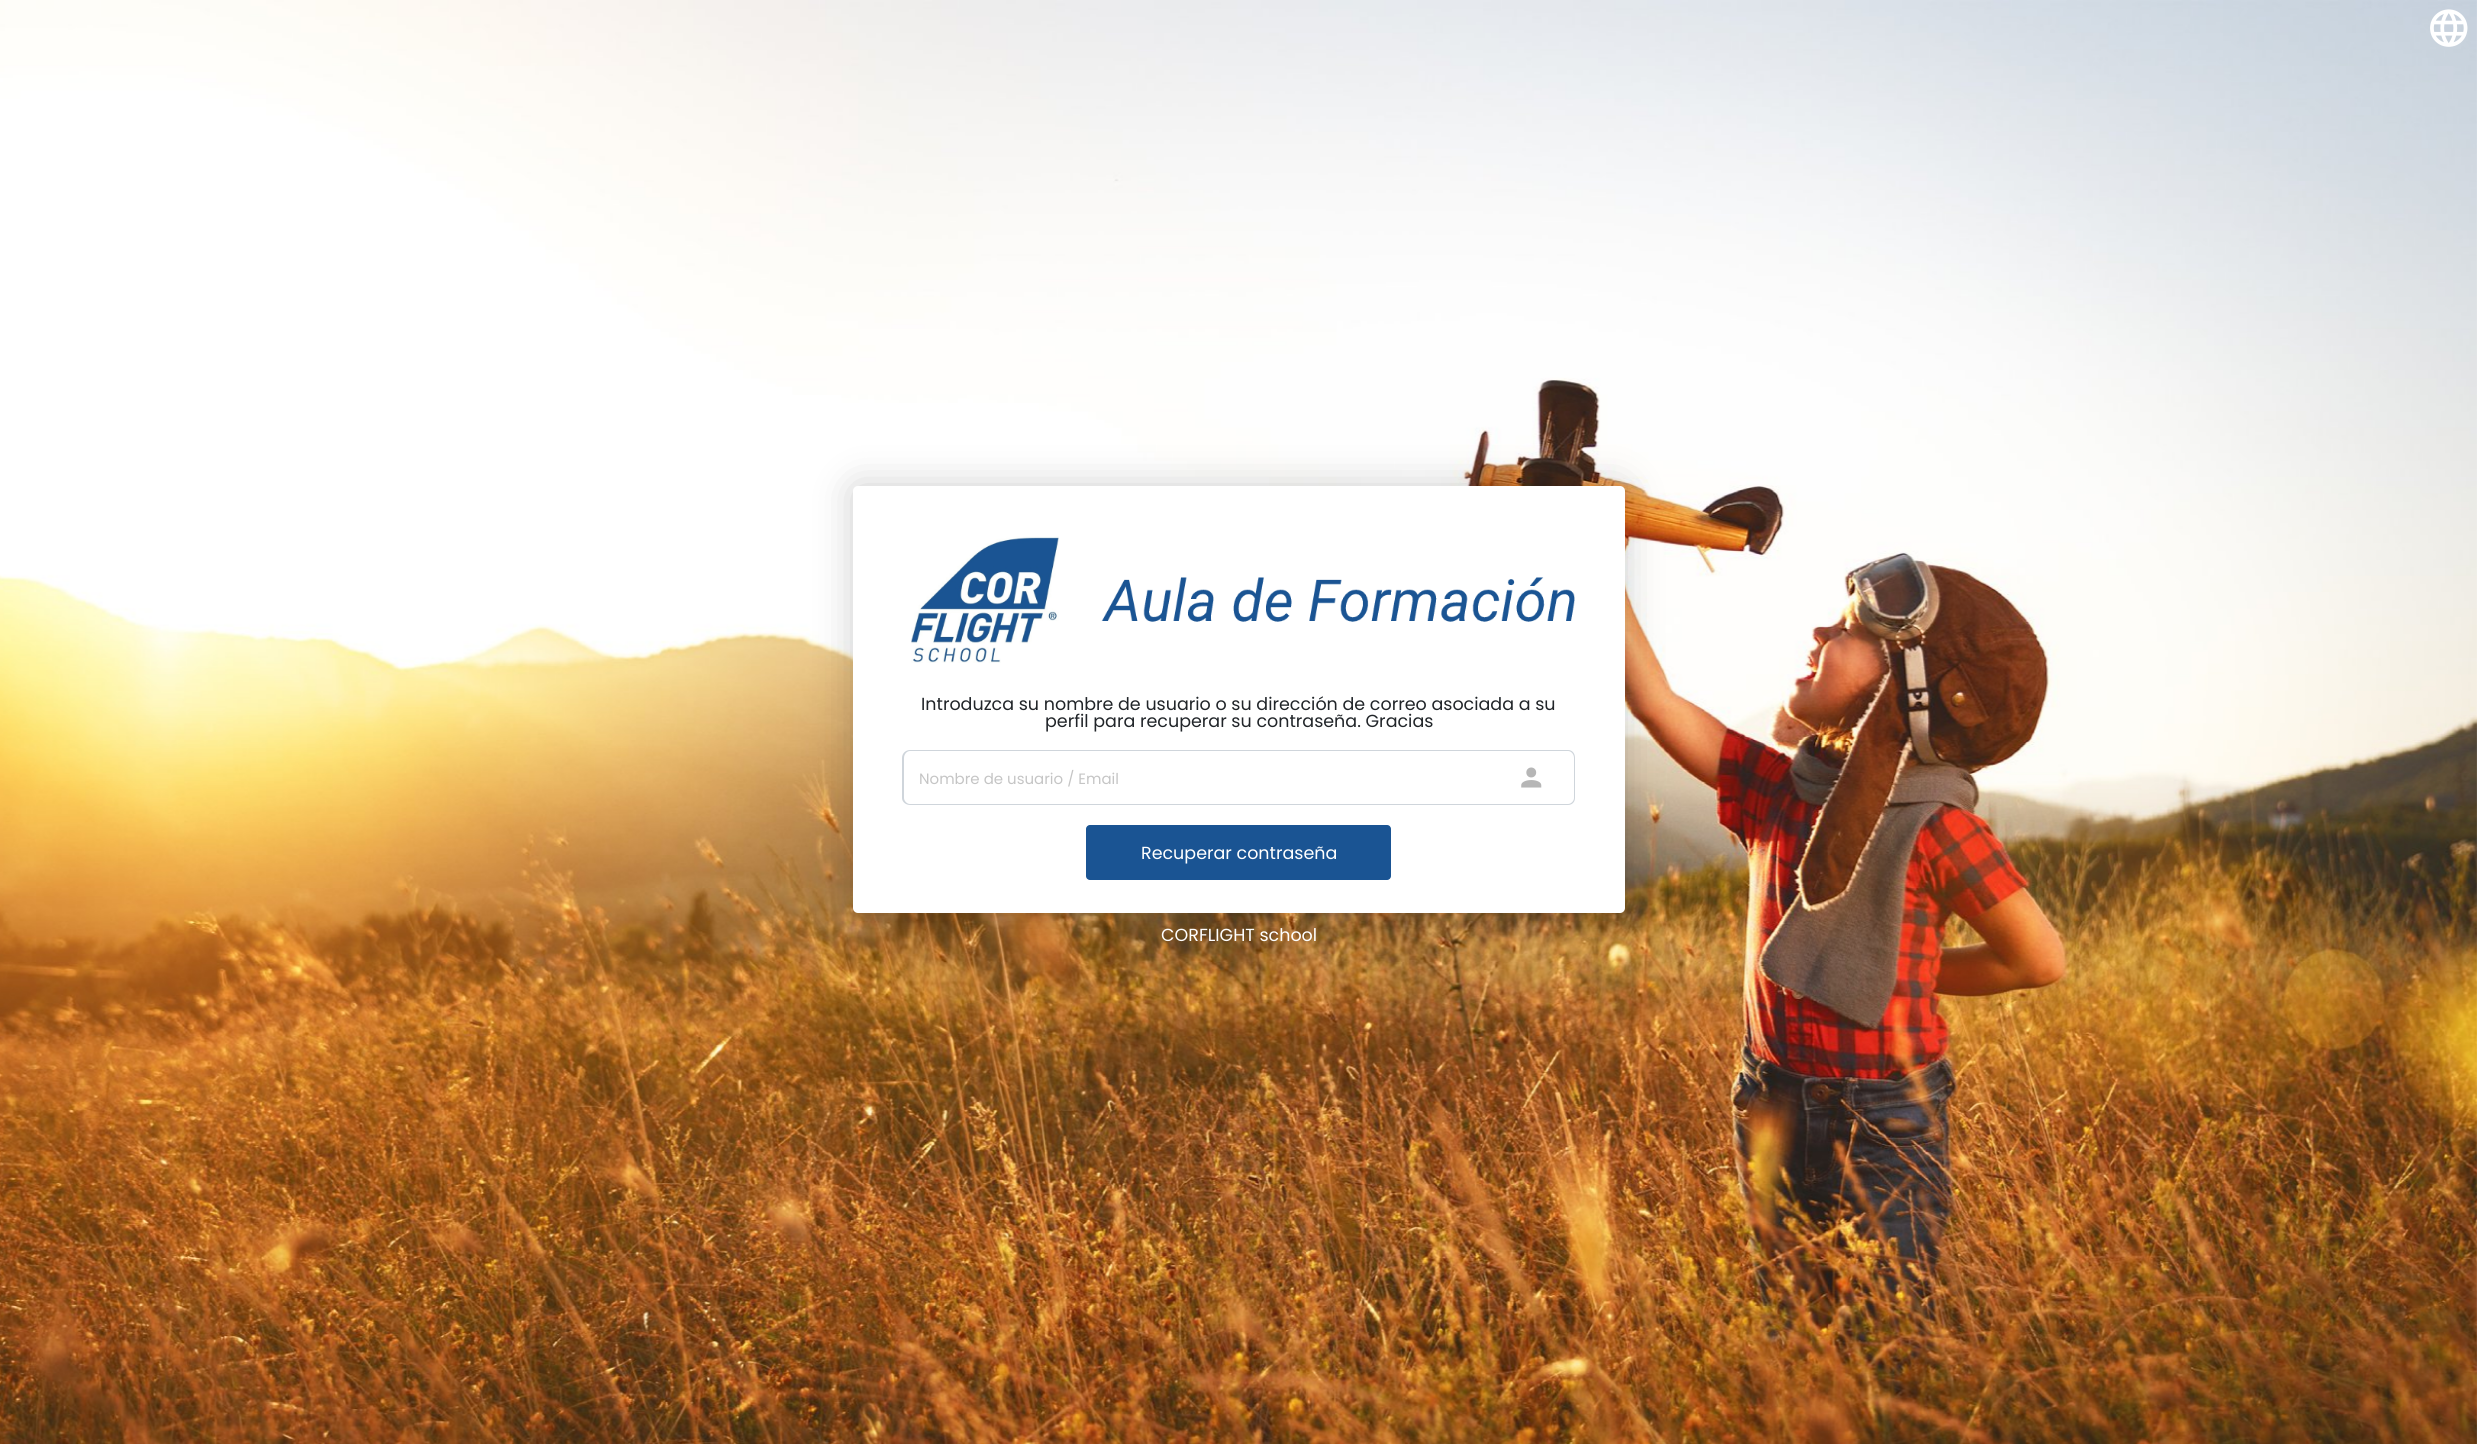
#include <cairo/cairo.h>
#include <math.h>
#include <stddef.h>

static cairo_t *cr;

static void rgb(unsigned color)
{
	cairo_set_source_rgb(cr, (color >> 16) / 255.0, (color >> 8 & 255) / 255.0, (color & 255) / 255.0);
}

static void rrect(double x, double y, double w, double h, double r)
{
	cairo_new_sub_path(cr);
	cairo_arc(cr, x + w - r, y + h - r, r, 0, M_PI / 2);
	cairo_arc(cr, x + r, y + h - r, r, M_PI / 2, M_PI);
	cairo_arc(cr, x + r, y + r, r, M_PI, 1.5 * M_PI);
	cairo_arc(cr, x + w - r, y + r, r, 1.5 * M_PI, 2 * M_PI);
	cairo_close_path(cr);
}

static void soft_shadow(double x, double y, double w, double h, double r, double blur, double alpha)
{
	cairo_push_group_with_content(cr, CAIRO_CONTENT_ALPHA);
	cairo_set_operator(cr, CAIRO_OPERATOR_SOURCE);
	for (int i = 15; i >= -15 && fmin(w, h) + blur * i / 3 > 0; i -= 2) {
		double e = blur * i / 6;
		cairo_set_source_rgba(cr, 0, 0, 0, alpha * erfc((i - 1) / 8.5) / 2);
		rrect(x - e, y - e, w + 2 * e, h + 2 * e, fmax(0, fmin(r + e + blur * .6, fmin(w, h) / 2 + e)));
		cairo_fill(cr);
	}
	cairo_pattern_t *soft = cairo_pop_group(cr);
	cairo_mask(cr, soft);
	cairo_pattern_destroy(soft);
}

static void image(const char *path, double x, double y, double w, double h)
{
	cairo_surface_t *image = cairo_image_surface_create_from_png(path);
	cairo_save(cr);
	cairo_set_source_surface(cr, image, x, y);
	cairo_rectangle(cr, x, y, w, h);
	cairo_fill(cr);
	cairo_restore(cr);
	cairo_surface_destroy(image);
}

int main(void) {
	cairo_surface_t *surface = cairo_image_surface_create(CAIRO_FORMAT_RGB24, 2477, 1444);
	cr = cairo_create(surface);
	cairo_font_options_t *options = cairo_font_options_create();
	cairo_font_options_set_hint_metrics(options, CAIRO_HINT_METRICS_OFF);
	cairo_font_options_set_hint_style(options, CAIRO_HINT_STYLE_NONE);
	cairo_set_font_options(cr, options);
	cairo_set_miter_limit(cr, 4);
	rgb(0xffffff);
	cairo_paint(cr);
	image("img/2.png", 0, 0, 2477, 1444);
	image("img/1.png", 2430, 9, 38, 38);
	rgb(0x000000);
	soft_shadow(853, 486, 772, 427, 5, 19, 0.2);
	rgb(0xffffff);
	rrect(853, 486, 772, 427, 5);
	cairo_fill(cr);
	image("img/3.png", 911, 536, 664, 127);
	rgb(0xcfd5db);
	cairo_set_fill_rule(cr, CAIRO_FILL_RULE_EVEN_ODD);
	cairo_new_path(cr);
	cairo_move_to(cr, 1489, 750);
	cairo_line_to(cr, 1568, 750);
	cairo_curve_to(cr, 1572, 750, 1575, 753, 1575, 758);
	cairo_line_to(cr, 1575, 798);
	cairo_curve_to(cr, 1575, 802, 1572, 805, 1568, 805);
	cairo_line_to(cr, 1489, 805);
	cairo_close_path(cr);
	cairo_move_to(cr, 1489, 751);
	cairo_line_to(cr, 1568, 751);
	cairo_curve_to(cr, 1571, 751, 1574, 754, 1574, 758);
	cairo_line_to(cr, 1574, 798);
	cairo_curve_to(cr, 1574, 801, 1571, 804, 1568, 804);
	cairo_line_to(cr, 1489, 804);
	cairo_close_path(cr);
	cairo_fill(cr);
	cairo_new_path(cr);
	cairo_move_to(cr, 910, 750);
	cairo_line_to(cr, 1490, 750);
	cairo_line_to(cr, 1490, 805);
	cairo_line_to(cr, 910, 805);
	cairo_curve_to(cr, 906, 805, 902, 802, 902, 798);
	cairo_line_to(cr, 902, 758);
	cairo_curve_to(cr, 902, 753, 906, 750, 910, 750);
	cairo_close_path(cr);
	cairo_move_to(cr, 910, 751);
	cairo_line_to(cr, 1490, 751);
	cairo_line_to(cr, 1490, 804);
	cairo_line_to(cr, 910, 804);
	cairo_curve_to(cr, 907, 804, 904, 801, 904, 798);
	cairo_line_to(cr, 904, 758);
	cairo_curve_to(cr, 904, 754, 907, 751, 910, 751);
	cairo_close_path(cr);
	cairo_fill(cr);
	image("img/4.png", 1521, 767, 21, 21);
	rgb(0x1a5493);
	rrect(1086, 825, 305, 55, 4);
	cairo_fill(cr);
	cairo_select_font_face(cr, "Poppins", CAIRO_FONT_SLANT_NORMAL, CAIRO_FONT_WEIGHT_NORMAL);
	cairo_set_font_size(cr, 17.5);
	rgb(0x212529);
	cairo_move_to(cr, 921, 710);
	cairo_show_text(cr, "Introduzca su nombre de usuario o su dirección de correo asociada a su");
	cairo_move_to(cr, 1045, 727);
	cairo_show_text(cr, "perfil para recuperar su contraseña. Gracias");
	cairo_set_font_size(cr, 15);
	rgb(0xc5c5c5);
	cairo_move_to(cr, 919, 784);
	cairo_show_text(cr, "Nombre de usuario / Email");
	cairo_set_font_size(cr, 17.5);
	rgb(0xffffff);
	cairo_move_to(cr, 1141, 859);
	cairo_show_text(cr, "Recuperar contraseña");
	cairo_move_to(cr, 1161, 941);
	cairo_show_text(cr, "CORFLIGHT school");
	cairo_surface_write_to_png(surface, "page.png");
	cairo_font_options_destroy(options);
	cairo_destroy(cr);
	cairo_surface_destroy(surface);
	return 0;
}
